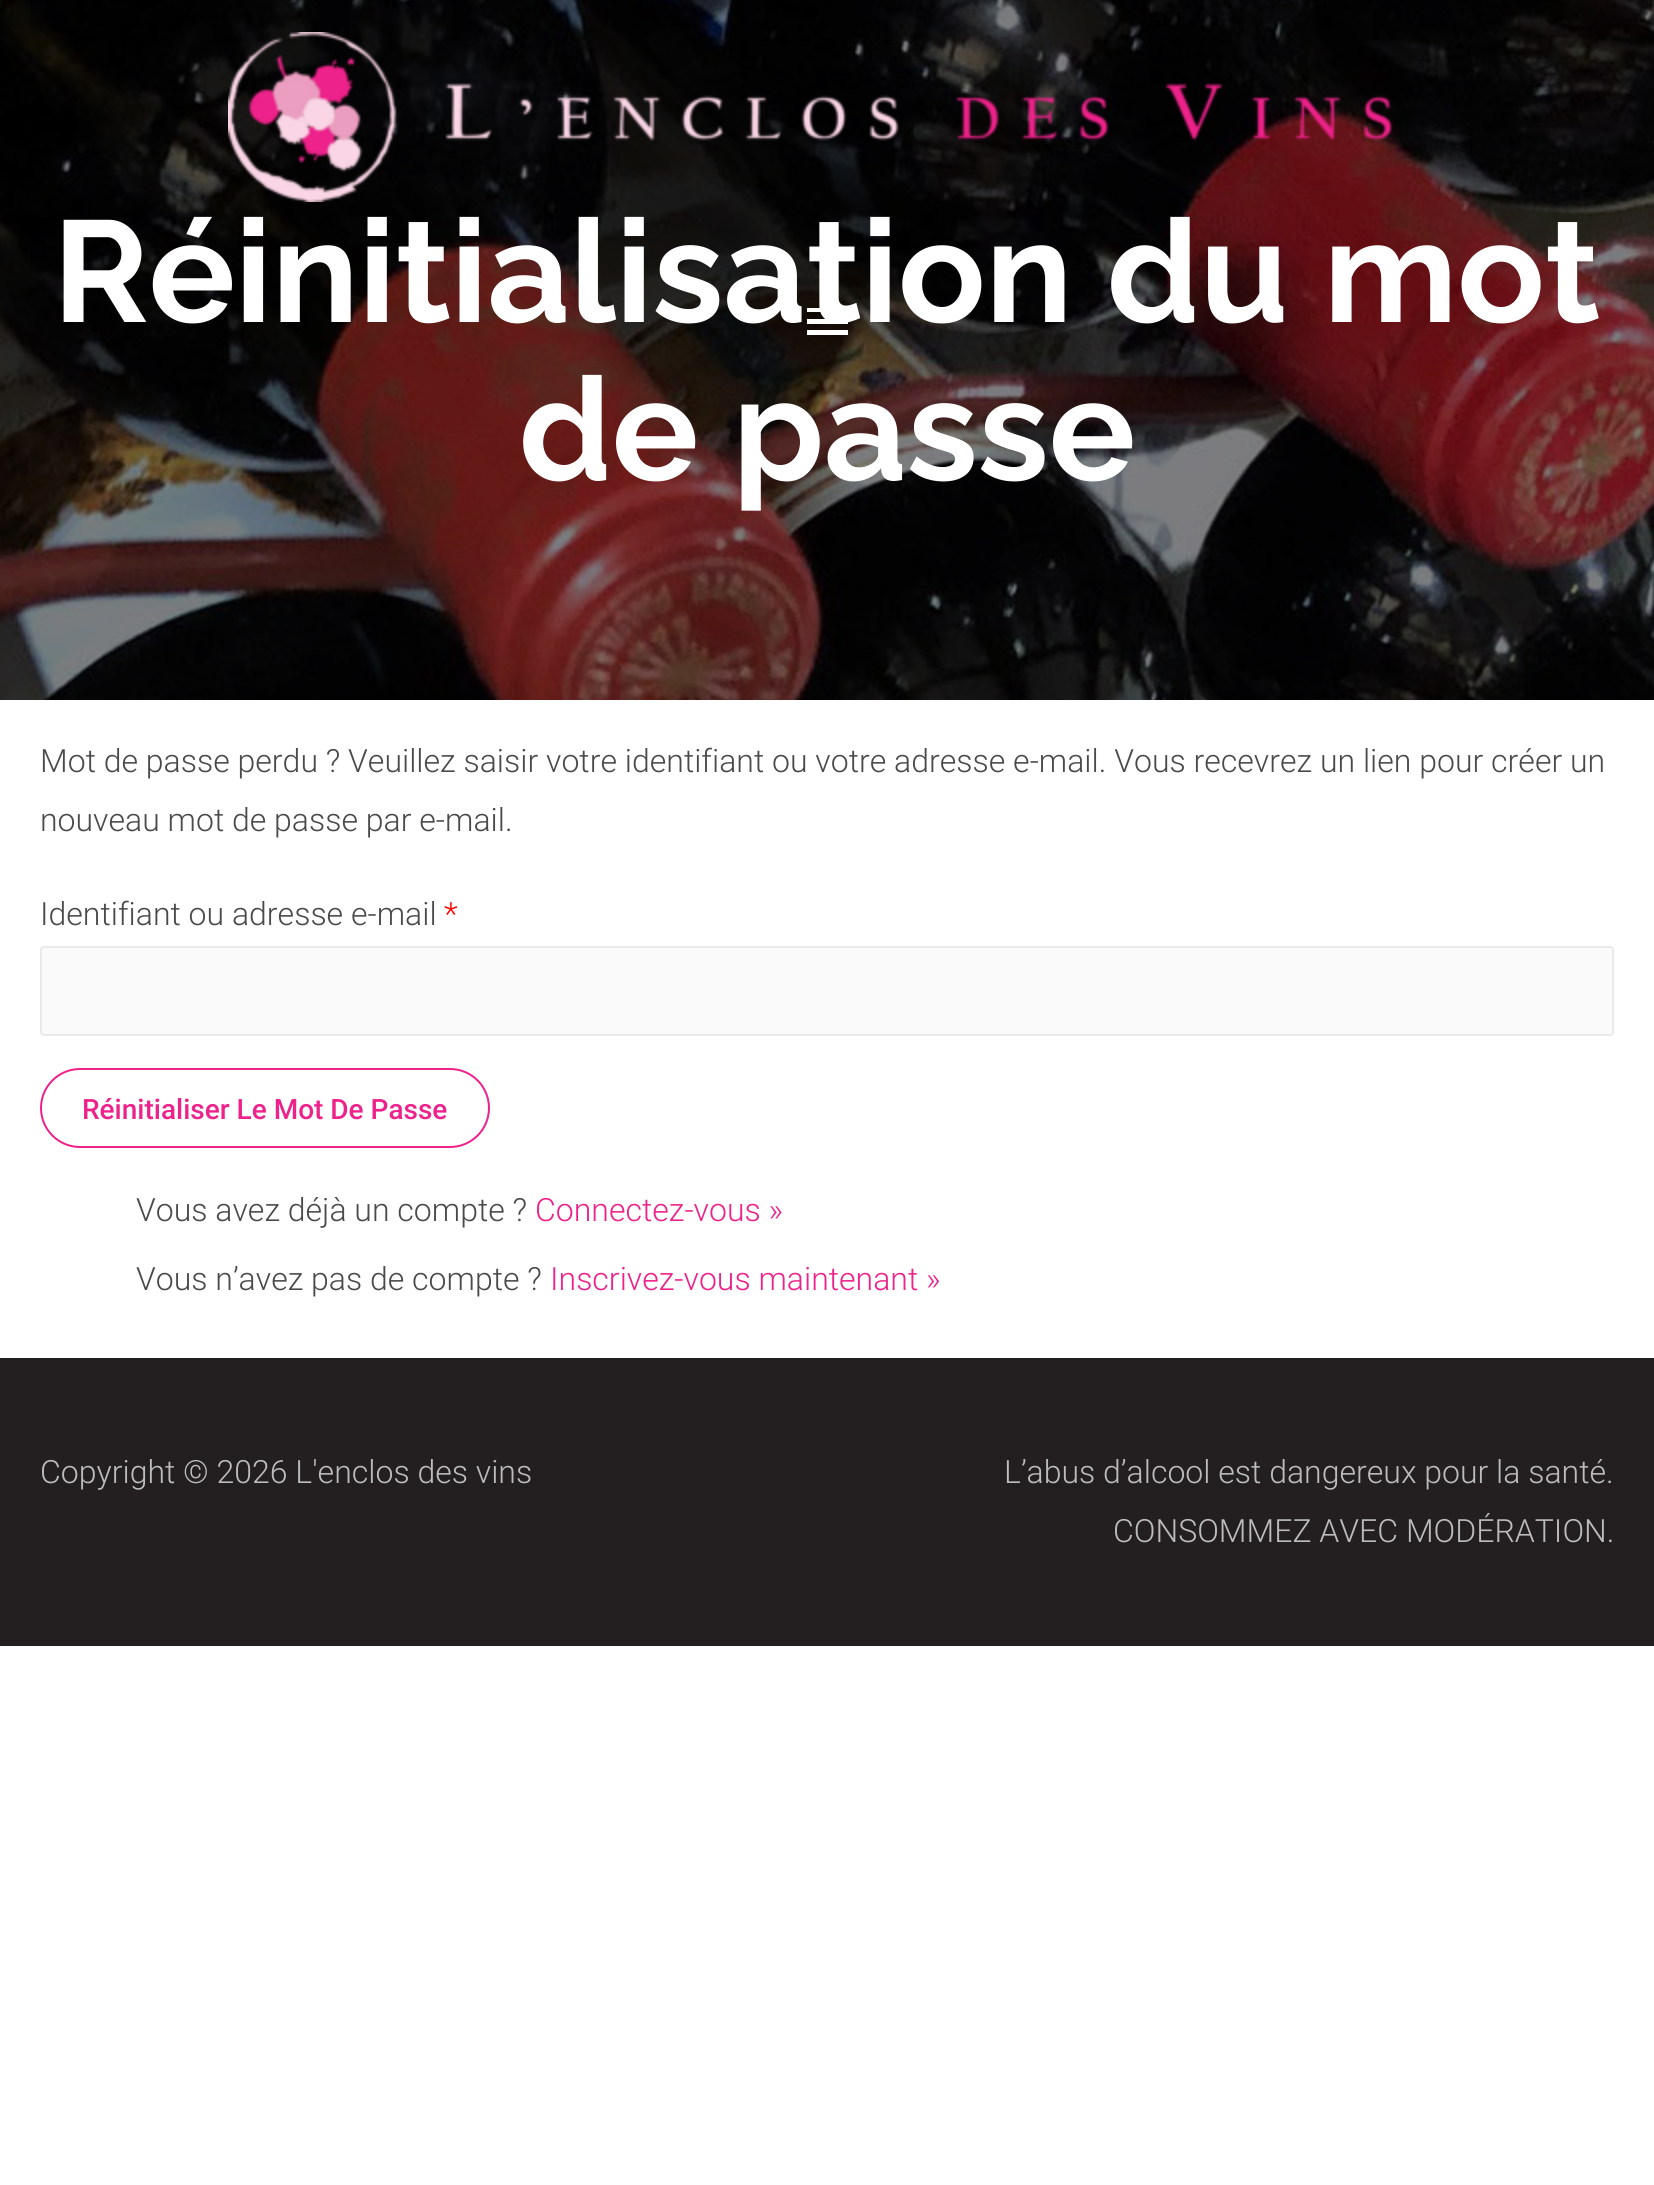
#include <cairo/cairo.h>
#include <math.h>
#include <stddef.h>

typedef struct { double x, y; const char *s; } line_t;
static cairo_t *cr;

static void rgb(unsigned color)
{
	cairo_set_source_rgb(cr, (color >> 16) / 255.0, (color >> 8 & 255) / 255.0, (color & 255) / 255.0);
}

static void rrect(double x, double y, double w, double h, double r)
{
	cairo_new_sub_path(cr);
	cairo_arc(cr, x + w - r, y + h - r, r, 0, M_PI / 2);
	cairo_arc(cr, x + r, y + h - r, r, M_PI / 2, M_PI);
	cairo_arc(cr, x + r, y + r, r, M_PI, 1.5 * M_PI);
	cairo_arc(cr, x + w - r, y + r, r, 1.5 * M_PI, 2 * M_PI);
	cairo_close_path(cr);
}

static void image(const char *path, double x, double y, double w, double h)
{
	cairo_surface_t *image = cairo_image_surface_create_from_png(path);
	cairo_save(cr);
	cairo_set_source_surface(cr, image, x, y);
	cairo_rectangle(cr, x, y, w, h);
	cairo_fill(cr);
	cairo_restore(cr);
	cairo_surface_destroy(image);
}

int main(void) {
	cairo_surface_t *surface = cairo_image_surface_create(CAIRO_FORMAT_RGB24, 1654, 2185);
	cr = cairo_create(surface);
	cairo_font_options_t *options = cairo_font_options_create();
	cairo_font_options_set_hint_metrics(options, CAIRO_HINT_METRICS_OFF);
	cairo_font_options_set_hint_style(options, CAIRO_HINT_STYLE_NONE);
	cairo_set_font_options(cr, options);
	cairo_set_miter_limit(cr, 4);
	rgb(0xffffff);
	cairo_paint(cr);
	image("img/2.png", 0, 0, 1654, 700);
	image("img/1.png", 228, 32, 1165, 170);
	rgb(0xffffff);
	cairo_new_path(cr);
	cairo_move_to(cr, 807, 308);
	cairo_line_to(cr, 848, 308);
	cairo_line_to(cr, 848, 312);
	cairo_line_to(cr, 807, 312);
	cairo_close_path(cr);
	cairo_move_to(cr, 807, 324);
	cairo_line_to(cr, 807, 319);
	cairo_line_to(cr, 848, 319);
	cairo_line_to(cr, 848, 324);
	cairo_close_path(cr);
	cairo_move_to(cr, 807, 335);
	cairo_line_to(cr, 807, 330);
	cairo_line_to(cr, 848, 330);
	cairo_line_to(cr, 848, 335);
	cairo_close_path(cr);
	cairo_fill(cr);
	rgb(0xfafafa);
	rrect(41, 947, 1572, 88, 3);
	cairo_fill_preserve(cr);
	rgb(0xeaeaea);
	cairo_stroke(cr);
	rrect(41, 1069, 448, 78, 39);
	rgb(0xed228a);
	cairo_stroke(cr);
	rgb(0x231f20);
	cairo_rectangle(cr, 0, 1358, 1654, 288);
	cairo_fill(cr);
	cairo_select_font_face(cr, "Raleway Thin", CAIRO_FONT_SLANT_NORMAL, CAIRO_FONT_WEIGHT_NORMAL);
	cairo_set_font_size(cr, 144);
	rgb(0xffffff);
	cairo_move_to(cr, 53, 322);
	cairo_show_text(cr, "Réinitialisation du mot");
	cairo_move_to(cr, 519, 480);
	cairo_show_text(cr, "de passe");
	cairo_select_font_face(cr, "Roboto Light", CAIRO_FONT_SLANT_NORMAL, CAIRO_FONT_WEIGHT_NORMAL);
	cairo_set_font_size(cr, 32);
	rgb(0x4a4a4a);
	{
		static const line_t items[] = {
			{40, 772, "Mot de passe perdu ? Veuillez saisir votre identifiant ou votre adresse e-mail. Vous recevrez un lien pour créer un"},
			{40, 831, "nouveau mot de passe par e-mail."},
			{40, 925, "Identifiant ou adresse e-mail"},
		};
		for (size_t i = 0; i < sizeof items / sizeof *items; i++) {
			cairo_move_to(cr, items[i].x, items[i].y);
			cairo_show_text(cr, items[i].s);
		}
	}
	rgb(0xff0000);
	cairo_move_to(cr, 444, 925);
	cairo_show_text(cr, "*");
	cairo_select_font_face(cr, "Roboto Medium", CAIRO_FONT_SLANT_NORMAL, CAIRO_FONT_WEIGHT_NORMAL);
	cairo_set_font_size(cr, 28);
	rgb(0xed228a);
	cairo_move_to(cr, 82, 1119);
	cairo_show_text(cr, "Réinitialiser Le Mot De Passe");
	cairo_select_font_face(cr, "Roboto Light", CAIRO_FONT_SLANT_NORMAL, CAIRO_FONT_WEIGHT_NORMAL);
	cairo_set_font_size(cr, 32);
	rgb(0x4a4a4a);
	cairo_move_to(cr, 136, 1221);
	cairo_show_text(cr, "Vous avez déjà un compte ?");
	rgb(0xed228a);
	cairo_move_to(cr, 535, 1221);
	cairo_show_text(cr, "Connectez-vous »");
	rgb(0x4a4a4a);
	cairo_move_to(cr, 136, 1290);
	cairo_show_text(cr, "Vous n’avez pas de compte ?");
	rgb(0xed228a);
	cairo_move_to(cr, 550, 1290);
	cairo_show_text(cr, "Inscrivez-vous maintenant »");
	rgb(0xbcbcbc);
	{
		static const line_t items[] = {
			{40, 1483, "Copyright © 2026 L'enclos des vins"},
			{1004, 1483, "L’abus d’alcool est dangereux pour la santé."},
			{1113, 1542, "CONSOMMEZ AVEC MODÉRATION."},
		};
		for (size_t i = 0; i < sizeof items / sizeof *items; i++) {
			cairo_move_to(cr, items[i].x, items[i].y);
			cairo_show_text(cr, items[i].s);
		}
	}
	cairo_surface_write_to_png(surface, "page.png");
	cairo_font_options_destroy(options);
	cairo_destroy(cr);
	cairo_surface_destroy(surface);
	return 0;
}
